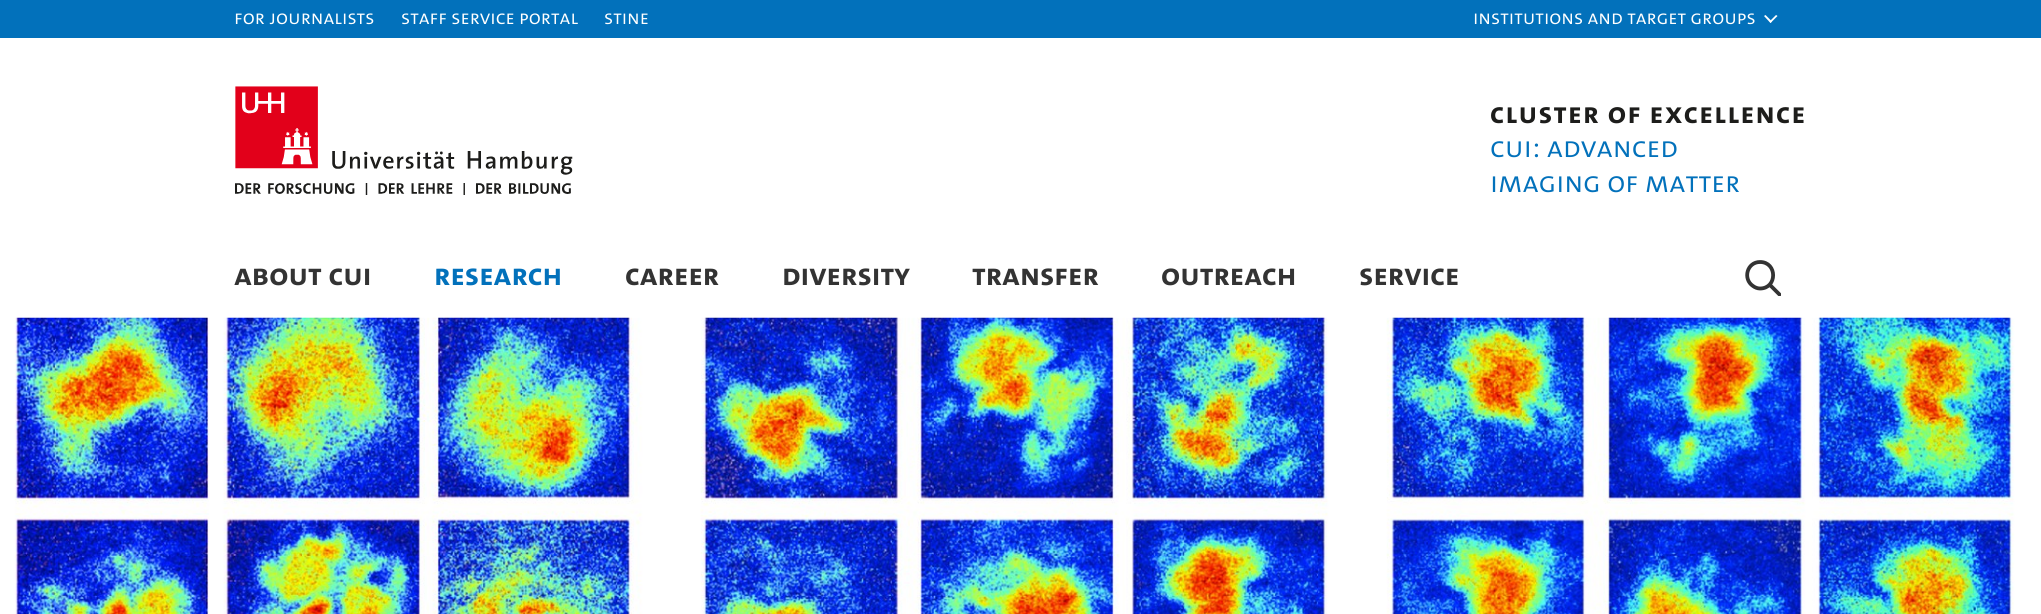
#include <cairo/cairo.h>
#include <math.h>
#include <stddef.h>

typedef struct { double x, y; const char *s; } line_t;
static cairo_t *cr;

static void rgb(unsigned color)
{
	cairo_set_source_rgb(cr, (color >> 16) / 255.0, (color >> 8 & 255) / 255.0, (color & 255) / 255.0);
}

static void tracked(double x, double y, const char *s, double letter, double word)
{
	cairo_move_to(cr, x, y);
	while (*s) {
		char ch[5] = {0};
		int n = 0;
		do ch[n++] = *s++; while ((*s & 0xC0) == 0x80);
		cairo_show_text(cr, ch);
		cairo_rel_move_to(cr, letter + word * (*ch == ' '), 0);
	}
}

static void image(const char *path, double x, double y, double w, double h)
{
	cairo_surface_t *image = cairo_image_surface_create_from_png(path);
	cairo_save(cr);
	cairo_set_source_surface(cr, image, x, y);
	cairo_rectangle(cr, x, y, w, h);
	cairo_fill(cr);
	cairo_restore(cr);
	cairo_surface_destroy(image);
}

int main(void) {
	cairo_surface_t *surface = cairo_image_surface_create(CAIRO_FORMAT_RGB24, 2041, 614);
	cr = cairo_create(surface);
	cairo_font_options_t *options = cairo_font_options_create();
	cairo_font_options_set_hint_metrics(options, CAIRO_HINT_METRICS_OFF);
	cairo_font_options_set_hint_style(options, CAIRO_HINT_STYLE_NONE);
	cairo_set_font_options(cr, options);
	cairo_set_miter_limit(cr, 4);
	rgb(0xffffff);
	cairo_paint(cr);
	rgb(0x0271bb);
	cairo_rectangle(cr, 0, 0, 2041, 38);
	cairo_fill(cr);
	rgb(0xffffff);
	cairo_new_path(cr);
	cairo_move_to(cr, 1776, 15);
	cairo_line_to(cr, 1777.5, 16);
	cairo_line_to(cr, 1770.5, 23);
	cairo_line_to(cr, 1769.5, 21.5);
	cairo_close_path(cr);
	cairo_fill(cr);
	cairo_new_path(cr);
	cairo_move_to(cr, 1765.5, 15);
	cairo_line_to(cr, 1772, 21.5);
	cairo_line_to(cr, 1770.5, 23);
	cairo_line_to(cr, 1764, 16);
	cairo_close_path(cr);
	cairo_fill(cr);
	image("img/1.png", 235, 86, 338, 109);
	cairo_save(cr);
	cairo_rectangle(cr, 1745, 260, 36, 36);
	cairo_clip(cr);
	cairo_new_path(cr);
	cairo_move_to(cr, 1760, 288.5);
	cairo_curve_to(cr, 1777.5, 288.5, 1777.5, 262, 1760, 262);
	cairo_curve_to(cr, 1747, 262, 1742.5, 279, 1753, 286);
	cairo_curve_to(cr, 1755, 287.5, 1757.5, 288.5, 1760, 288.5);
	cairo_close_path(cr);
	cairo_move_to(cr, 1770, 285);
	cairo_line_to(cr, 1779.5, 294.5);
	rgb(0x333333);
	cairo_set_line_width(cr, 3.8);
	cairo_set_line_cap(cr, CAIRO_LINE_CAP_ROUND);
	cairo_stroke(cr);
	cairo_restore(cr);
	image("img/2.png", 0, 317, 2041, 297);
	cairo_select_font_face(cr, "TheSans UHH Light", CAIRO_FONT_SLANT_NORMAL, CAIRO_FONT_WEIGHT_NORMAL);
	cairo_set_font_size(cr, 20);
	{
		static const line_t items[] = {
			{234, 24, "For journalists"},
			{401, 24, "Staff Service Portal"},
			{604, 24, "STiNE"},
			{1473, 24, "Institutions and target groups"},
		};
		for (size_t i = 0; i < sizeof items / sizeof *items; i++) {
			cairo_move_to(cr, items[i].x, items[i].y);
			cairo_show_text(cr, items[i].s);
		}
	}
	cairo_select_font_face(cr, "TheSans UHH", CAIRO_FONT_SLANT_NORMAL, CAIRO_FONT_WEIGHT_BOLD);
	cairo_set_font_size(cr, 30);
	rgb(0x1d1d1b);
	tracked(1490, 123, "Cluster of Excellence", 1.25, 0);
	cairo_select_font_face(cr, "TheSans UHH Light", CAIRO_FONT_SLANT_NORMAL, CAIRO_FONT_WEIGHT_NORMAL);
	rgb(0x0271bb);
	cairo_move_to(cr, 1490, 157);
	cairo_show_text(cr, "CUI: Advanced");
	cairo_move_to(cr, 1490, 192);
	cairo_show_text(cr, "Imaging of Matter");
	cairo_select_font_face(cr, "TheSans UHH", CAIRO_FONT_SLANT_NORMAL, CAIRO_FONT_WEIGHT_BOLD);
	cairo_set_font_size(cr, 31.25);
	rgb(0x333333);
	cairo_move_to(cr, 234, 285);
	cairo_show_text(cr, "ABOUT CUI");
	rgb(0x0271bb);
	cairo_move_to(cr, 434, 285);
	cairo_show_text(cr, "RESEARCH");
	rgb(0x333333);
	{
		static const line_t items[] = {
			{625, 285, "CAREER"},
			{782, 285, "DIVERSITY"},
			{972, 285, "TRANSFER"},
			{1161, 285, "OUTREACH"},
			{1359, 285, "SERVICE"},
		};
		for (size_t i = 0; i < sizeof items / sizeof *items; i++) {
			cairo_move_to(cr, items[i].x, items[i].y);
			cairo_show_text(cr, items[i].s);
		}
	}
	cairo_surface_write_to_png(surface, "page.png");
	cairo_font_options_destroy(options);
	cairo_destroy(cr);
	cairo_surface_destroy(surface);
	return 0;
}
